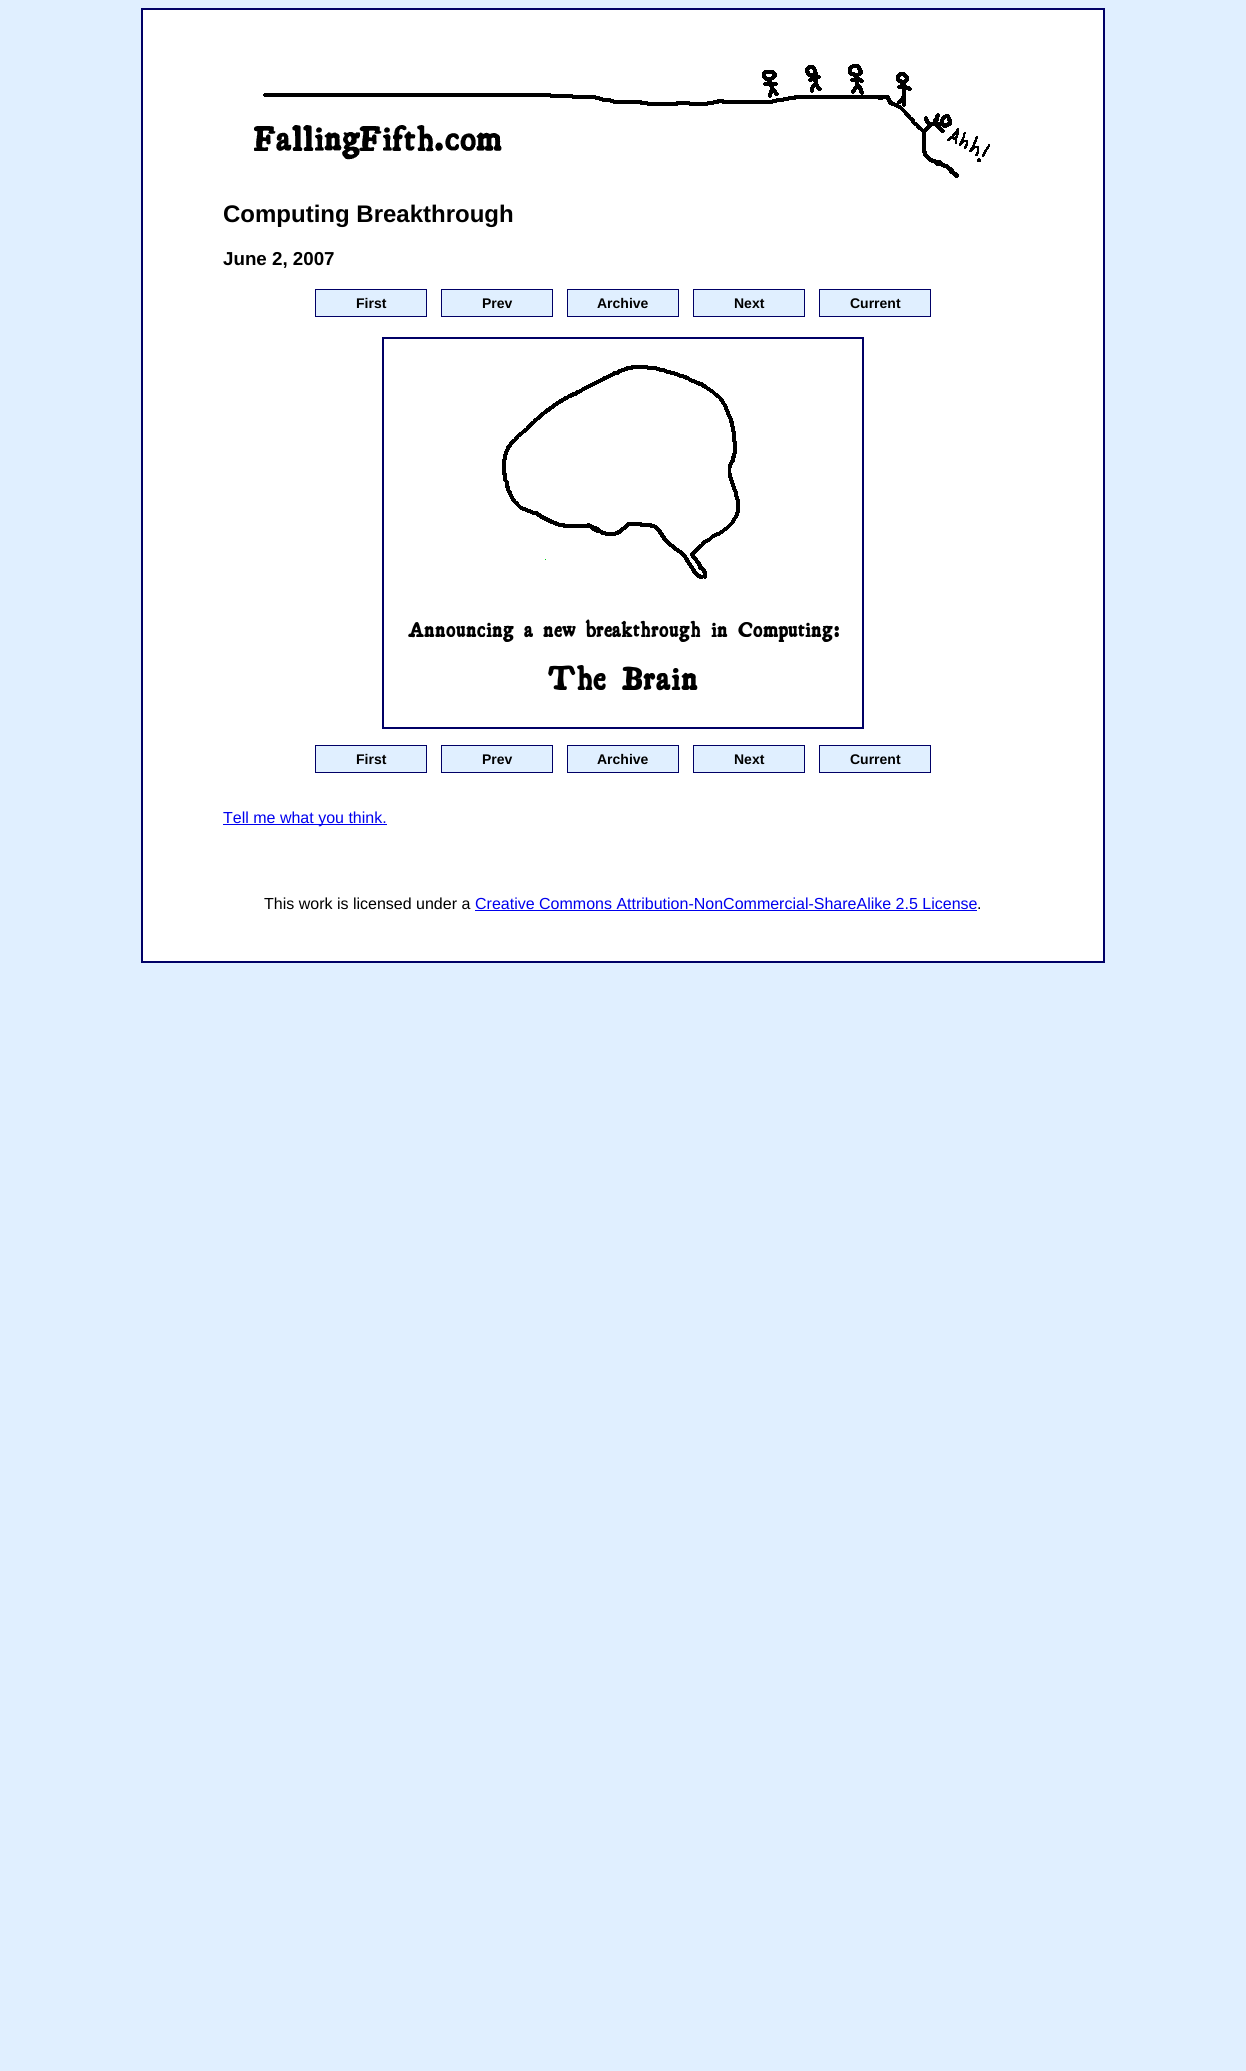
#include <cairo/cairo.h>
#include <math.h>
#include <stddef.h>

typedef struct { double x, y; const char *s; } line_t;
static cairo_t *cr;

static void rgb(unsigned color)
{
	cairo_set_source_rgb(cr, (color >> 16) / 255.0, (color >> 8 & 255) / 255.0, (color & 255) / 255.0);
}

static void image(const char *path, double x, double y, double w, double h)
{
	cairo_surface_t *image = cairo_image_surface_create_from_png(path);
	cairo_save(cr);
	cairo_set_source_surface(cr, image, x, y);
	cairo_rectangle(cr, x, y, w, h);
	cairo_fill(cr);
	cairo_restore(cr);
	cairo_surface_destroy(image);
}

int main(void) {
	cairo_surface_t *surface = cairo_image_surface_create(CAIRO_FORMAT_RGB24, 1246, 2071);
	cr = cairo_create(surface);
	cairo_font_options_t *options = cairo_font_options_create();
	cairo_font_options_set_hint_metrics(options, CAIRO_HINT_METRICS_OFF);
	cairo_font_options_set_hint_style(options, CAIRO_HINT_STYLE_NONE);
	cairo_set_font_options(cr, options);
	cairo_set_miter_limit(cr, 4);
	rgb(0xe0efff);
	cairo_paint(cr);
	rgb(0xffffff);
	cairo_rectangle(cr, 142, 9, 962, 953);
	cairo_fill_preserve(cr);
	rgb(0x000066);
	cairo_stroke(cr);
	image("img/1.png", 254, 64, 736, 114);
	rgb(0xe0efff);
	cairo_rectangle(cr, 315.5, 289.5, 111, 27);
	cairo_fill_preserve(cr);
	rgb(0x000066);
	cairo_set_line_width(cr, 1);
	cairo_stroke(cr);
	rgb(0xe0efff);
	cairo_rectangle(cr, 441.5, 289.5, 111, 27);
	cairo_fill_preserve(cr);
	rgb(0x000066);
	cairo_stroke(cr);
	rgb(0xe0efff);
	cairo_rectangle(cr, 567.5, 289.5, 111, 27);
	cairo_fill_preserve(cr);
	rgb(0x000066);
	cairo_stroke(cr);
	rgb(0xe0efff);
	cairo_rectangle(cr, 693.5, 289.5, 111, 27);
	cairo_fill_preserve(cr);
	rgb(0x000066);
	cairo_stroke(cr);
	rgb(0xe0efff);
	cairo_rectangle(cr, 819.5, 289.5, 111, 27);
	cairo_fill_preserve(cr);
	rgb(0x000066);
	cairo_stroke(cr);
	cairo_rectangle(cr, 383, 338, 480, 390);
	cairo_set_line_width(cr, 2);
	cairo_stroke(cr);
	image("img/2.png", 408, 365, 431, 326);
	rgb(0xe0efff);
	cairo_rectangle(cr, 315.5, 745.5, 111, 27);
	cairo_fill_preserve(cr);
	rgb(0x000066);
	cairo_set_line_width(cr, 1);
	cairo_stroke(cr);
	rgb(0xe0efff);
	cairo_rectangle(cr, 441.5, 745.5, 111, 27);
	cairo_fill_preserve(cr);
	rgb(0x000066);
	cairo_stroke(cr);
	rgb(0xe0efff);
	cairo_rectangle(cr, 567.5, 745.5, 111, 27);
	cairo_fill_preserve(cr);
	rgb(0x000066);
	cairo_stroke(cr);
	rgb(0xe0efff);
	cairo_rectangle(cr, 693.5, 745.5, 111, 27);
	cairo_fill_preserve(cr);
	rgb(0x000066);
	cairo_stroke(cr);
	rgb(0xe0efff);
	cairo_rectangle(cr, 819.5, 745.5, 111, 27);
	cairo_fill_preserve(cr);
	rgb(0x000066);
	cairo_stroke(cr);
	rgb(0x0000ee);
	cairo_rectangle(cr, 223, 824, 164, 1);
	cairo_fill(cr);
	cairo_rectangle(cr, 475, 910, 502, 1);
	cairo_fill(cr);
	cairo_select_font_face(cr, "Liberation Sans", CAIRO_FONT_SLANT_NORMAL, CAIRO_FONT_WEIGHT_BOLD);
	cairo_set_font_size(cr, 24);
	rgb(0x000000);
	cairo_move_to(cr, 223, 222);
	cairo_show_text(cr, "Computing Breakthrough");
	cairo_set_font_size(cr, 18.75);
	cairo_move_to(cr, 223, 265);
	cairo_show_text(cr, "June 2, 2007");
	cairo_set_font_size(cr, 14);
	{
		static const line_t items[] = {
			{356, 308, "First"},
			{482, 308, "Prev"},
			{597, 308, "Archive"},
			{734, 308, "Next"},
			{850, 308, "Current"},
			{356, 764, "First"},
			{482, 764, "Prev"},
			{597, 764, "Archive"},
			{734, 764, "Next"},
			{850, 764, "Current"},
		};
		for (size_t i = 0; i < sizeof items / sizeof *items; i++) {
			cairo_move_to(cr, items[i].x, items[i].y);
			cairo_show_text(cr, items[i].s);
		}
	}
	cairo_select_font_face(cr, "Liberation Sans", CAIRO_FONT_SLANT_NORMAL, CAIRO_FONT_WEIGHT_NORMAL);
	cairo_set_font_size(cr, 16);
	rgb(0x0000ee);
	cairo_move_to(cr, 223, 823);
	cairo_show_text(cr, "Tell me what you think.");
	rgb(0x000000);
	cairo_move_to(cr, 264, 909);
	cairo_show_text(cr, "This work is licensed under a");
	rgb(0x0000ee);
	cairo_move_to(cr, 475, 909);
	cairo_show_text(cr, "Creative Commons Attribution-NonCommercial-ShareAlike 2.5 License");
	rgb(0x000000);
	cairo_move_to(cr, 977, 909);
	cairo_show_text(cr, ".");
	cairo_surface_write_to_png(surface, "page.png");
	cairo_font_options_destroy(options);
	cairo_destroy(cr);
	cairo_surface_destroy(surface);
	return 0;
}
